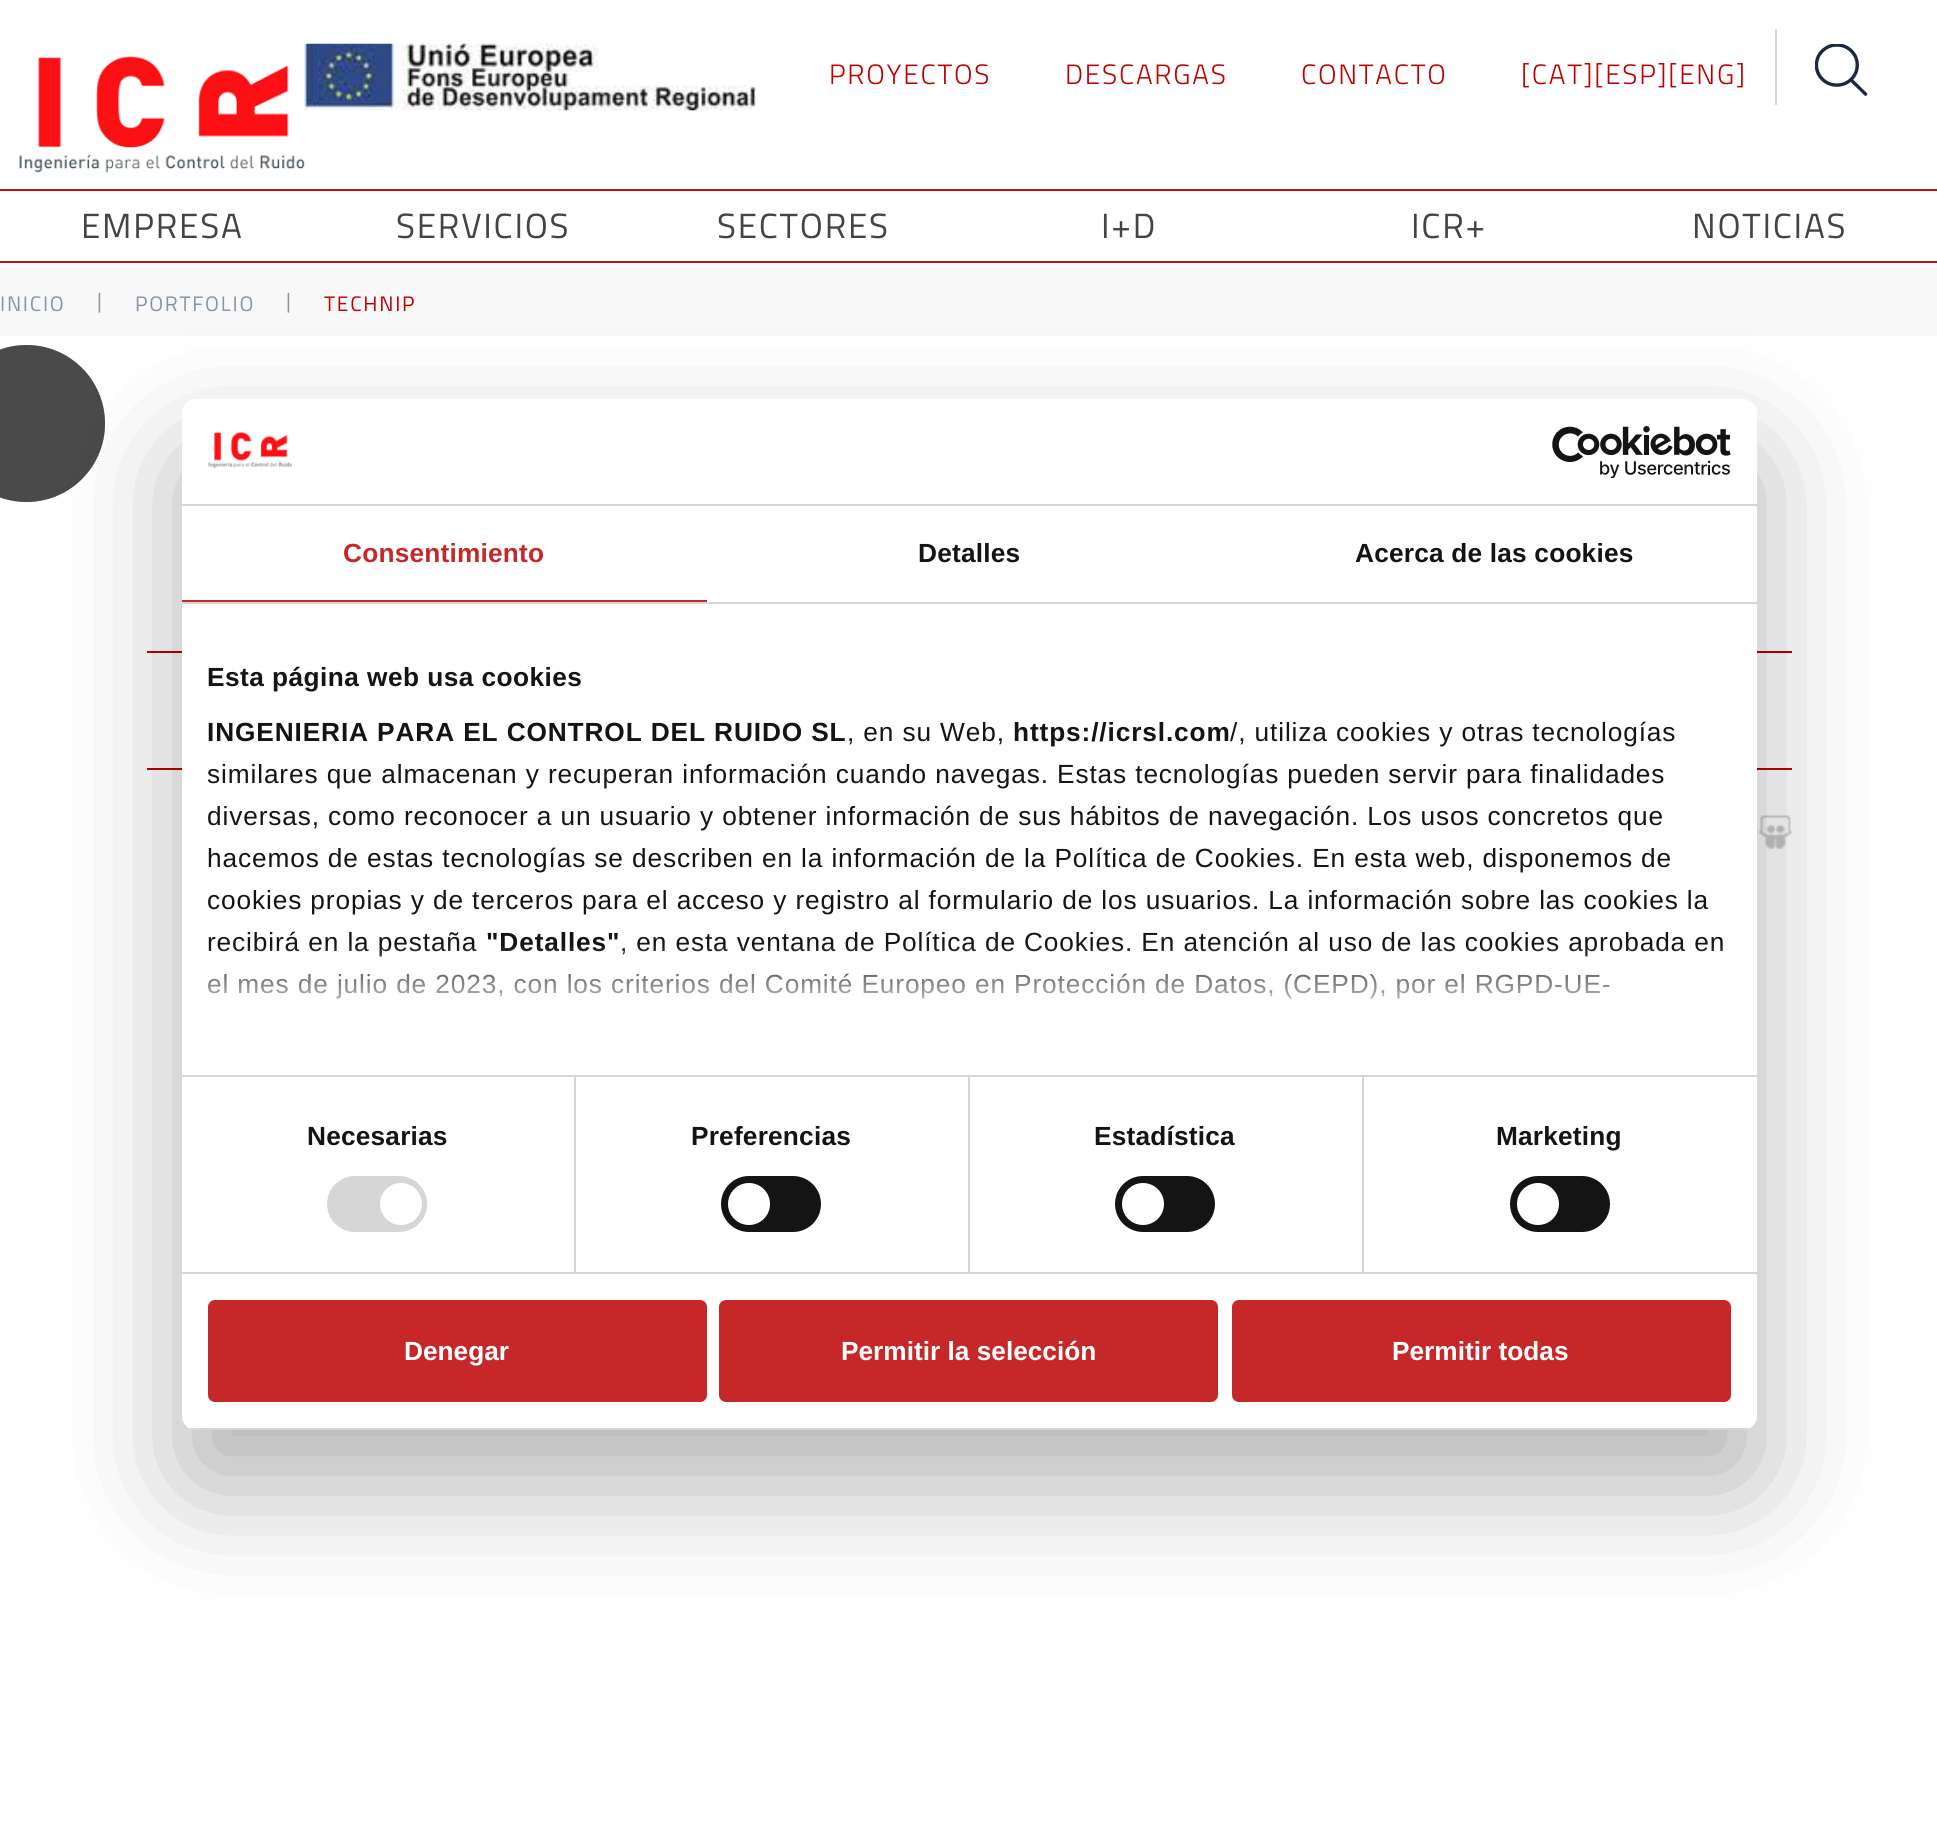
#include <cairo/cairo.h>
#include <math.h>
#include <stddef.h>

typedef struct { double x, y; const char *s; } line_t;
typedef struct { double x, y, w, h; unsigned color; } box_t;
static cairo_t *cr;

static void rgb(unsigned color)
{
	cairo_set_source_rgb(cr, (color >> 16) / 255.0, (color >> 8 & 255) / 255.0, (color & 255) / 255.0);
}

static void tracked(double x, double y, const char *s, double letter, double word)
{
	cairo_move_to(cr, x, y);
	while (*s) {
		char ch[5] = {0};
		int n = 0;
		do ch[n++] = *s++; while ((*s & 0xC0) == 0x80);
		cairo_show_text(cr, ch);
		cairo_rel_move_to(cr, letter + word * (*ch == ' '), 0);
	}
}

static void rrect(double x, double y, double w, double h, double r)
{
	cairo_new_sub_path(cr);
	cairo_arc(cr, x + w - r, y + h - r, r, 0, M_PI / 2);
	cairo_arc(cr, x + r, y + h - r, r, M_PI / 2, M_PI);
	cairo_arc(cr, x + r, y + r, r, M_PI, 1.5 * M_PI);
	cairo_arc(cr, x + w - r, y + r, r, 1.5 * M_PI, 2 * M_PI);
	cairo_close_path(cr);
}

static void soft_shadow(double x, double y, double w, double h, double r, double blur, double alpha)
{
	cairo_push_group_with_content(cr, CAIRO_CONTENT_ALPHA);
	cairo_set_operator(cr, CAIRO_OPERATOR_SOURCE);
	for (int i = 15; i >= -15 && fmin(w, h) + blur * i / 3 > 0; i -= 2) {
		double e = blur * i / 6;
		cairo_set_source_rgba(cr, 0, 0, 0, alpha * erfc((i - 1) / 8.5) / 2);
		rrect(x - e, y - e, w + 2 * e, h + 2 * e, fmax(0, fmin(r + e + blur * .6, fmin(w, h) / 2 + e)));
		cairo_fill(cr);
	}
	cairo_pattern_t *soft = cairo_pop_group(cr);
	cairo_mask(cr, soft);
	cairo_pattern_destroy(soft);
}

static void image(const char *path, double x, double y, double w, double h)
{
	cairo_surface_t *image = cairo_image_surface_create_from_png(path);
	cairo_save(cr);
	cairo_set_source_surface(cr, image, x, y);
	cairo_rectangle(cr, x, y, w, h);
	cairo_fill(cr);
	cairo_restore(cr);
	cairo_surface_destroy(image);
}

int main(void) {
	cairo_surface_t *surface = cairo_image_surface_create(CAIRO_FORMAT_RGB24, 1937, 1828);
	cr = cairo_create(surface);
	cairo_font_options_t *options = cairo_font_options_create();
	cairo_font_options_set_hint_metrics(options, CAIRO_HINT_METRICS_OFF);
	cairo_font_options_set_hint_style(options, CAIRO_HINT_STYLE_NONE);
	cairo_set_font_options(cr, options);
	cairo_set_miter_limit(cr, 4);
	cairo_pattern_t *gradient;
	rgb(0xffffff);
	cairo_paint(cr);
	image("img/2.png", 304, 43, 452, 68);
	image("img/1.png", 19, 56, 286, 117);
	rgb(0xcfd8e2);
	cairo_rectangle(cr, 1775, 30, 2, 75);
	cairo_fill(cr);
	image("img/3.png", 1815, 44, 53, 52);
	{
		static const box_t items[] = {
			{0, 189, 1937, 2, 0xc01010},
			{0, 261, 1937, 2, 0xc01010},
			{0, 264, 1937, 72, 0xf8f8f9},
		};
		for (size_t i = 0; i < sizeof items / sizeof *items; i++) {
			rgb(items[i].color);
			cairo_rectangle(cr, items[i].x, items[i].y, items[i].w, items[i].h);
			cairo_fill(cr);
		}
	}
	rgb(0x7e7e7e);
	cairo_arc(cr, 26.5, 423.5, 78.5, 0, 2 * M_PI);
	cairo_fill(cr);
	cairo_set_source_rgba(cr, 0.157, 0.157, 0.157, 0.6);
	cairo_arc(cr, 26.5, 423.5, 78.5, 0, 2 * M_PI);
	cairo_fill(cr);
	rgb(0xbf0001);
	cairo_rectangle(cr, 147, 651, 1645, 2);
	cairo_fill(cr);
	cairo_rectangle(cr, 147, 768, 1645, 2);
	cairo_fill(cr);
	image("img/4.png", 1758, 815, 34, 34);
	rgb(0x000000);
	soft_shadow(182, 455, 1575, 1031, 14, 59.5, 0.3);
	rgb(0xffffff);
	rrect(182, 399, 1575, 1031, 14);
	cairo_fill(cr);
	rgb(0xd6d6d6);
	cairo_rectangle(cr, 182, 504, 1575, 2);
	cairo_fill(cr);
	image("img/5.png", 208, 432, 85, 36);
	image("img/6.png", 1552, 426, 179, 52);
	{
		static const box_t items[] = {
			{182, 602, 1575, 2, 0xd6d6d6},
			{182, 600, 525, 2, 0xc62829},
			{574, 1076, 2, 196, 0xd6d6d6},
			{968, 1076, 2, 196, 0xd6d6d6},
			{1362, 1076, 2, 196, 0xd6d6d6},
			{182, 1075, 1575, 2, 0xd6d6d6},
			{182, 1272, 1575, 2, 0xd6d6d6},
		};
		for (size_t i = 0; i < sizeof items / sizeof *items; i++) {
			rgb(items[i].color);
			cairo_rectangle(cr, items[i].x, items[i].y, items[i].w, items[i].h);
			cairo_fill(cr);
		}
	}
	rrect(327, 1176, 100, 56, 28);
	cairo_fill(cr);
	rgb(0xffffff);
	cairo_arc(cr, 401, 1204, 21, 0, 2 * M_PI);
	cairo_fill(cr);
	rgb(0x141414);
	rrect(721, 1176, 100, 56, 28);
	cairo_fill(cr);
	rgb(0xffffff);
	cairo_arc(cr, 749, 1204, 21, 0, 2 * M_PI);
	cairo_fill(cr);
	rgb(0x141414);
	rrect(1115, 1176, 100, 56, 28);
	cairo_fill(cr);
	rgb(0xffffff);
	cairo_arc(cr, 1143, 1204, 21, 0, 2 * M_PI);
	cairo_fill(cr);
	rgb(0x141414);
	rrect(1510, 1176, 100, 56, 28);
	cairo_fill(cr);
	rgb(0xffffff);
	cairo_arc(cr, 1538, 1204, 21, 0, 2 * M_PI);
	cairo_fill(cr);
	cairo_save(cr);
	rrect(182, 399, 1575, 1031, 14);
	cairo_clip(cr);
	rgb(0xd6d6d6);
	cairo_rectangle(cr, 182, 1428, 1575, 2);
	cairo_fill(cr);
	cairo_restore(cr);
	rgb(0xc62829);
	rrect(210, 1302, 495, 98, 5);
	cairo_fill_preserve(cr);
	cairo_set_line_width(cr, 4);
	cairo_stroke(cr);
	rrect(721, 1302, 495, 98, 5);
	cairo_fill_preserve(cr);
	cairo_stroke(cr);
	rrect(1234, 1302, 495, 98, 5);
	cairo_fill_preserve(cr);
	cairo_stroke(cr);
	cairo_select_font_face(cr, "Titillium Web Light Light", CAIRO_FONT_SLANT_NORMAL, CAIRO_FONT_WEIGHT_NORMAL);
	cairo_set_font_size(cr, 28);
	rgb(0xbf0001);
	{
		static const line_t items[] = {
			{829, 84, "PROYECTOS"},
			{1065, 84, "DESCARGAS"},
			{1301, 84, "CONTACTO"},
			{1521, 84, "[CAT][ESP][ENG]"},
		};
		for (size_t i = 0; i < sizeof items / sizeof *items; i++) {
			tracked(items[i].x, items[i].y, items[i].s, 1.75, 0);
		}
	}
	cairo_select_font_face(cr, "Titillium Web", CAIRO_FONT_SLANT_NORMAL, CAIRO_FONT_WEIGHT_NORMAL);
	cairo_set_font_size(cr, 35);
	rgb(0x444444);
	{
		static const line_t items[] = {
			{81, 238, "EMPRESA"},
			{396, 238, "SERVICIOS"},
			{717, 238, "SECTORES"},
			{1101, 238, "I+D"},
			{1411, 238, "ICR+"},
			{1692, 238, "NOTICIAS"},
		};
		for (size_t i = 0; i < sizeof items / sizeof *items; i++) {
			tracked(items[i].x, items[i].y, items[i].s, 1.75, 0);
		}
	}
	cairo_set_font_size(cr, 21);
	rgb(0x8594a7);
	{
		static const line_t items[] = {
			{0, 311, "INICIO"},
			{97, 308, "|"},
			{135, 311, "PORTFOLIO"},
			{286, 308, "|"},
		};
		for (size_t i = 0; i < sizeof items / sizeof *items; i++) {
			tracked(items[i].x, items[i].y, items[i].s, 1.75, 0);
		}
	}
	rgb(0xbf0001);
	tracked(324, 311, "TECHNIP", 1.75, 0);
	cairo_select_font_face(cr, "Liberation Sans", CAIRO_FONT_SLANT_NORMAL, CAIRO_FONT_WEIGHT_BOLD);
	cairo_set_font_size(cr, 26.25);
	rgb(0xc62829);
	tracked(343, 562, "Consentimiento", 0.2, 0);
	rgb(0x141414);
	tracked(918, 562, "Detalles", 0.2, 0);
	tracked(1355, 562, "Acerca de las cookies", 0.2, 0);
	tracked(207, 686, "Esta página web usa cookies", 0.45, 0);
	tracked(207, 741, "INGENIERIA PARA EL CONTROL DEL RUIDO SL", 0.88, 0);
	cairo_select_font_face(cr, "Liberation Sans", CAIRO_FONT_SLANT_NORMAL, CAIRO_FONT_WEIGHT_NORMAL);
	tracked(847, 741, ", en su Web,", 0.88, 0);
	cairo_select_font_face(cr, "Liberation Sans", CAIRO_FONT_SLANT_NORMAL, CAIRO_FONT_WEIGHT_BOLD);
	tracked(1013, 741, "https://icrsl.com", 0.88, 0);
	cairo_select_font_face(cr, "Liberation Sans", CAIRO_FONT_SLANT_NORMAL, CAIRO_FONT_WEIGHT_NORMAL);
	{
		static const line_t items[] = {
			{1230, 741, "/, utiliza cookies y otras tecnologías"},
			{207, 783, "similares que almacenan y recuperan información cuando navegas. Estas tecnologías pueden servir para finalidades"},
			{207, 825, "diversas, como reconocer a un usuario y obtener información de sus hábitos de navegación. Los usos concretos que"},
			{207, 867, "hacemos de estas tecnologías se describen en la información de la Política de Cookies. En esta web, disponemos de"},
			{207, 909, "cookies propias y de terceros para el acceso y registro al formulario de los usuarios. La información sobre las cookies la"},
			{207, 951, "recibirá en la pestaña"},
		};
		for (size_t i = 0; i < sizeof items / sizeof *items; i++) {
			tracked(items[i].x, items[i].y, items[i].s, 0.88, 0);
		}
	}
	cairo_select_font_face(cr, "Liberation Sans", CAIRO_FONT_SLANT_NORMAL, CAIRO_FONT_WEIGHT_BOLD);
	tracked(486, 951, "\"Detalles\"", 0.88, 0);
	cairo_select_font_face(cr, "Liberation Sans", CAIRO_FONT_SLANT_NORMAL, CAIRO_FONT_WEIGHT_NORMAL);
	tracked(620, 951, ", en esta ventana de Política de Cookies. En atención al uso de las cookies aprobada en", 0.88, 0);
	tracked(207, 993, "el mes de julio de 2023, con los criterios del Comité Europeo en Protección de Datos, (CEPD), por el RGPD-UE-", 0.88, 0);
	gradient = cairo_pattern_create_linear(958, 1075, 958, 944);
	cairo_pattern_add_color_stop_rgba(gradient, 0, 1, 1, 1, 1);
	cairo_pattern_add_color_stop_rgba(gradient, 0.5, 1, 1, 1, 0.8);
	cairo_pattern_add_color_stop_rgba(gradient, 1, 1, 1, 1, 0);
	cairo_set_source(cr, gradient);
	cairo_pattern_destroy(gradient);
	cairo_rectangle(cr, 208, 946, 1515, 53);
	cairo_fill(cr);
	cairo_select_font_face(cr, "Liberation Sans", CAIRO_FONT_SLANT_NORMAL, CAIRO_FONT_WEIGHT_BOLD);
	rgb(0x141414);
	{
		static const line_t items[] = {
			{307, 1145, "Necesarias"},
			{691, 1145, "Preferencias"},
			{1094, 1145, "Estadística"},
			{1496, 1145, "Marketing"},
		};
		for (size_t i = 0; i < sizeof items / sizeof *items; i++) {
			tracked(items[i].x, items[i].y, items[i].s, 0.2, 0);
		}
	}
	rgb(0xffffff);
	{
		static const line_t items[] = {
			{404, 1360, "Denegar"},
			{841, 1360, "Permitir la selección"},
			{1392, 1360, "Permitir todas"},
		};
		for (size_t i = 0; i < sizeof items / sizeof *items; i++) {
			cairo_move_to(cr, items[i].x, items[i].y);
			cairo_show_text(cr, items[i].s);
		}
	}
	cairo_surface_write_to_png(surface, "page.png");
	cairo_font_options_destroy(options);
	cairo_destroy(cr);
	cairo_surface_destroy(surface);
	return 0;
}
